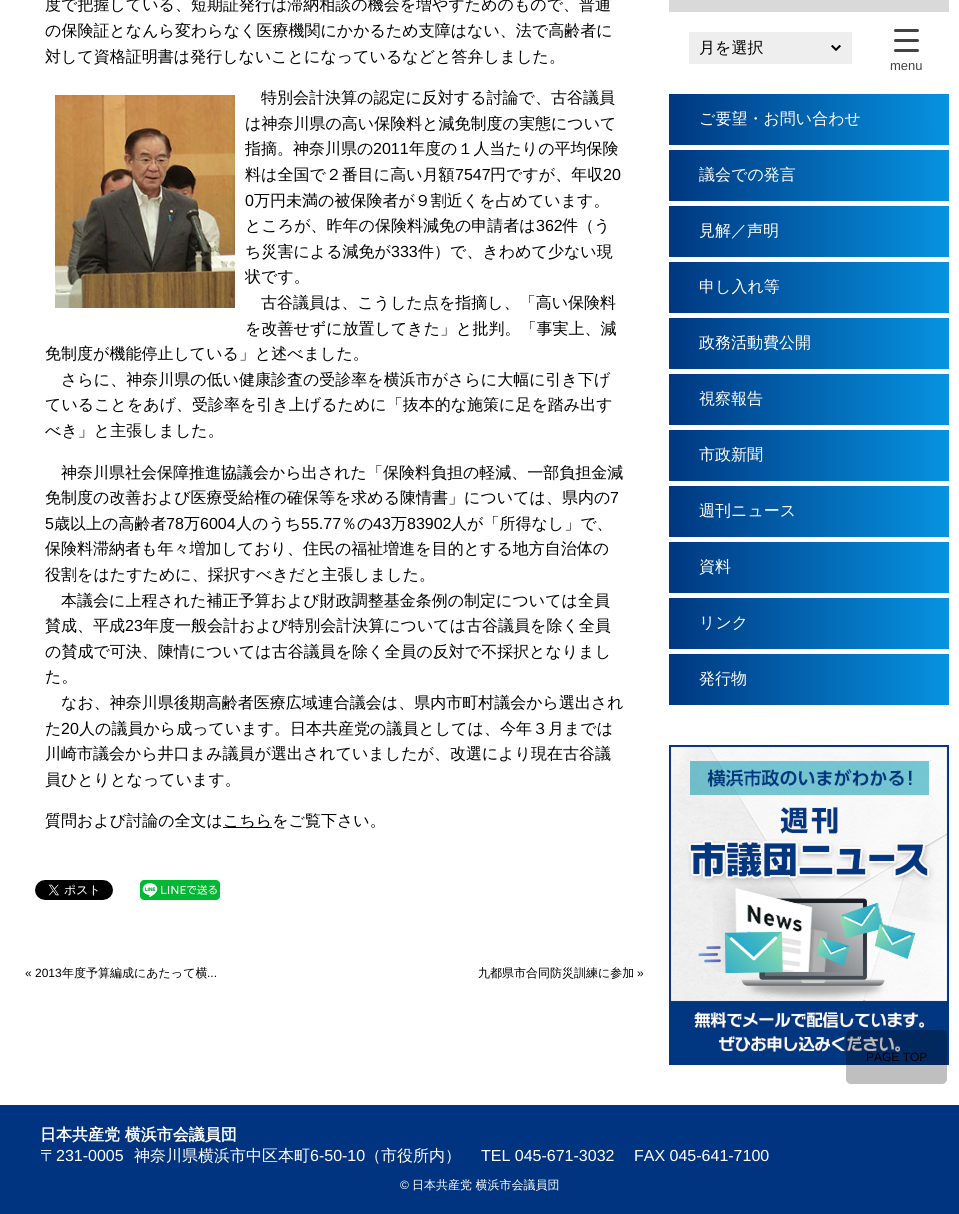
#include <cairo/cairo.h>
#include <math.h>
#include <stddef.h>

typedef struct { double x, y; const char *s; } line_t;
static cairo_t *cr;

static void rgb(unsigned color)
{
	cairo_set_source_rgb(cr, (color >> 16) / 255.0, (color >> 8 & 255) / 255.0, (color & 255) / 255.0);
}

static void rrect(double x, double y, double w, double h, double r)
{
	cairo_new_sub_path(cr);
	cairo_arc(cr, x + w - r, y + h - r, r, 0, M_PI / 2);
	cairo_arc(cr, x + r, y + h - r, r, M_PI / 2, M_PI);
	cairo_arc(cr, x + r, y + r, r, M_PI, 1.5 * M_PI);
	cairo_arc(cr, x + w - r, y + r, r, 1.5 * M_PI, 2 * M_PI);
	cairo_close_path(cr);
}

static void image(const char *path, double x, double y, double w, double h)
{
	cairo_surface_t *image = cairo_image_surface_create_from_png(path);
	cairo_save(cr);
	cairo_set_source_surface(cr, image, x, y);
	cairo_rectangle(cr, x, y, w, h);
	cairo_fill(cr);
	cairo_restore(cr);
	cairo_surface_destroy(image);
}

int main(void) {
	cairo_surface_t *surface = cairo_image_surface_create(CAIRO_FORMAT_RGB24, 959, 1214);
	cr = cairo_create(surface);
	cairo_font_options_t *options = cairo_font_options_create();
	cairo_font_options_set_hint_metrics(options, CAIRO_HINT_METRICS_OFF);
	cairo_font_options_set_hint_style(options, CAIRO_HINT_STYLE_NONE);
	cairo_set_font_options(cr, options);
	cairo_set_miter_limit(cr, 4);
	cairo_pattern_t *gradient;
	rgb(0xffffff);
	cairo_paint(cr);
	image("img/1.png", 55, 95, 180, 213);
	rgb(0x000000);
	cairo_rectangle(cr, 223, 827, 49, 1);
	cairo_fill(cr);
	image("img/2.png", 35, 880, 78, 20);
	image("img/3.png", 140, 880, 80, 20);
	rgb(0xd9d9d9);
	cairo_rectangle(cr, 669, 0, 280, 12);
	cairo_fill(cr);
	rgb(0xeeeeee);
	cairo_rectangle(cr, 689, 32, 163, 32);
	cairo_fill(cr);
	image("img/4.png", 831, 44, 10, 7);
	gradient = cairo_pattern_create_linear(669, 120, 949, 119);
	cairo_pattern_add_color_stop_rgba(gradient, 0, 0, 0.216, 0.502, 1);
	cairo_pattern_add_color_stop_rgba(gradient, 1, 0.024, 0.576, 0.882, 1);
	cairo_set_source(cr, gradient);
	cairo_pattern_destroy(gradient);
	cairo_rectangle(cr, 669, 94, 280, 51);
	cairo_fill(cr);
	gradient = cairo_pattern_create_linear(669, 176, 949, 176);
	cairo_pattern_add_color_stop_rgba(gradient, 0, 0, 0.216, 0.502, 1);
	cairo_pattern_add_color_stop_rgba(gradient, 1, 0.024, 0.576, 0.882, 1);
	cairo_set_source(cr, gradient);
	cairo_pattern_destroy(gradient);
	cairo_rectangle(cr, 669, 150, 280, 51);
	cairo_fill(cr);
	gradient = cairo_pattern_create_linear(669, 232, 949, 232);
	cairo_pattern_add_color_stop_rgba(gradient, 0, 0, 0.216, 0.502, 1);
	cairo_pattern_add_color_stop_rgba(gradient, 1, 0.024, 0.576, 0.882, 1);
	cairo_set_source(cr, gradient);
	cairo_pattern_destroy(gradient);
	cairo_rectangle(cr, 669, 206, 280, 51);
	cairo_fill(cr);
	gradient = cairo_pattern_create_linear(669, 288, 949, 288);
	cairo_pattern_add_color_stop_rgba(gradient, 0, 0, 0.216, 0.502, 1);
	cairo_pattern_add_color_stop_rgba(gradient, 1, 0.024, 0.576, 0.882, 1);
	cairo_set_source(cr, gradient);
	cairo_pattern_destroy(gradient);
	cairo_rectangle(cr, 669, 262, 280, 51);
	cairo_fill(cr);
	gradient = cairo_pattern_create_linear(669, 344, 949, 344);
	cairo_pattern_add_color_stop_rgba(gradient, 0, 0, 0.216, 0.502, 1);
	cairo_pattern_add_color_stop_rgba(gradient, 1, 0.024, 0.576, 0.882, 1);
	cairo_set_source(cr, gradient);
	cairo_pattern_destroy(gradient);
	cairo_rectangle(cr, 669, 318, 280, 51);
	cairo_fill(cr);
	gradient = cairo_pattern_create_linear(669, 400, 949, 400);
	cairo_pattern_add_color_stop_rgba(gradient, 0, 0, 0.216, 0.502, 1);
	cairo_pattern_add_color_stop_rgba(gradient, 1, 0.024, 0.576, 0.882, 1);
	cairo_set_source(cr, gradient);
	cairo_pattern_destroy(gradient);
	cairo_rectangle(cr, 669, 374, 280, 51);
	cairo_fill(cr);
	gradient = cairo_pattern_create_linear(669, 456, 949, 456);
	cairo_pattern_add_color_stop_rgba(gradient, 0, 0, 0.216, 0.502, 1);
	cairo_pattern_add_color_stop_rgba(gradient, 1, 0.024, 0.576, 0.882, 1);
	cairo_set_source(cr, gradient);
	cairo_pattern_destroy(gradient);
	cairo_rectangle(cr, 669, 430, 280, 51);
	cairo_fill(cr);
	gradient = cairo_pattern_create_linear(669, 512, 949, 512);
	cairo_pattern_add_color_stop_rgba(gradient, 0, 0, 0.216, 0.502, 1);
	cairo_pattern_add_color_stop_rgba(gradient, 1, 0.024, 0.576, 0.882, 1);
	cairo_set_source(cr, gradient);
	cairo_pattern_destroy(gradient);
	cairo_rectangle(cr, 669, 486, 280, 51);
	cairo_fill(cr);
	gradient = cairo_pattern_create_linear(669, 568, 949, 568);
	cairo_pattern_add_color_stop_rgba(gradient, 0, 0, 0.216, 0.502, 1);
	cairo_pattern_add_color_stop_rgba(gradient, 1, 0.024, 0.576, 0.882, 1);
	cairo_set_source(cr, gradient);
	cairo_pattern_destroy(gradient);
	cairo_rectangle(cr, 669, 542, 280, 51);
	cairo_fill(cr);
	gradient = cairo_pattern_create_linear(669, 624, 949, 624);
	cairo_pattern_add_color_stop_rgba(gradient, 0, 0, 0.216, 0.502, 1);
	cairo_pattern_add_color_stop_rgba(gradient, 1, 0.024, 0.576, 0.882, 1);
	cairo_set_source(cr, gradient);
	cairo_pattern_destroy(gradient);
	cairo_rectangle(cr, 669, 598, 280, 51);
	cairo_fill(cr);
	gradient = cairo_pattern_create_linear(669, 680, 949, 680);
	cairo_pattern_add_color_stop_rgba(gradient, 0, 0, 0.216, 0.502, 1);
	cairo_pattern_add_color_stop_rgba(gradient, 1, 0.024, 0.576, 0.882, 1);
	cairo_set_source(cr, gradient);
	cairo_pattern_destroy(gradient);
	cairo_rectangle(cr, 669, 654, 280, 51);
	cairo_fill(cr);
	image("img/5.png", 669, 745, 280, 320);
	rgb(0x424242);
	rrect(894, 39, 25, 3, 1.5);
	cairo_fill(cr);
	rrect(894, 29, 25, 3, 1.5);
	cairo_fill(cr);
	rrect(894, 49, 25, 3, 1.5);
	cairo_fill(cr);
	cairo_set_source_rgba(cr, 0, 0, 0, 0.25);
	rrect(846, 1030, 101, 54, 5);
	cairo_fill(cr);
	rgb(0x003480);
	cairo_rectangle(cr, 0, 1105, 959, 109);
	cairo_fill(cr);
	cairo_select_font_face(cr, "WenQuanYi Zen Hei Medium", CAIRO_FONT_SLANT_NORMAL, CAIRO_FONT_WEIGHT_NORMAL);
	cairo_set_font_size(cr, 16);
	rgb(0x000000);
	{
		static const line_t items[] = {
			{45, 10, "度で把握している、短期証発行は滞納相談の機会を増やすためのもので、普通"},
			{45, 36, "の保険証となんら変わらなく医療機関にかかるため支障はない、法で高齢者に"},
			{45, 62, "対して資格証明書は発行しないことになっているなどと答弁しました。"},
			{261, 103, "特別会計決算の認定に反対する討論で、古谷議員"},
			{245, 129, "は神奈川県の高い保険料と減免制度の実態について"},
			{245, 154, "指摘。神奈川県の"},
		};
		for (size_t i = 0; i < sizeof items / sizeof *items; i++) {
			cairo_move_to(cr, items[i].x, items[i].y);
			cairo_show_text(cr, items[i].s);
		}
	}
	cairo_select_font_face(cr, "Liberation Sans", CAIRO_FONT_SLANT_NORMAL, CAIRO_FONT_WEIGHT_NORMAL);
	cairo_move_to(cr, 373, 154);
	cairo_show_text(cr, "2011");
	cairo_select_font_face(cr, "WenQuanYi Zen Hei Medium", CAIRO_FONT_SLANT_NORMAL, CAIRO_FONT_WEIGHT_NORMAL);
	cairo_move_to(cr, 409, 154);
	cairo_show_text(cr, "年度の１人当たりの平均保険");
	cairo_move_to(cr, 245, 180);
	cairo_show_text(cr, "料は全国で２番目に高い月額");
	cairo_select_font_face(cr, "Liberation Sans", CAIRO_FONT_SLANT_NORMAL, CAIRO_FONT_WEIGHT_NORMAL);
	cairo_move_to(cr, 455, 180);
	cairo_show_text(cr, "7547");
	cairo_select_font_face(cr, "WenQuanYi Zen Hei Medium", CAIRO_FONT_SLANT_NORMAL, CAIRO_FONT_WEIGHT_NORMAL);
	cairo_move_to(cr, 490, 180);
	cairo_show_text(cr, "円ですが、年収");
	cairo_select_font_face(cr, "Liberation Sans", CAIRO_FONT_SLANT_NORMAL, CAIRO_FONT_WEIGHT_NORMAL);
	cairo_move_to(cr, 603, 180);
	cairo_show_text(cr, "20");
	cairo_move_to(cr, 245, 206);
	cairo_show_text(cr, "0");
	cairo_select_font_face(cr, "WenQuanYi Zen Hei Medium", CAIRO_FONT_SLANT_NORMAL, CAIRO_FONT_WEIGHT_NORMAL);
	cairo_move_to(cr, 254, 206);
	cairo_show_text(cr, "万円未満の被保険者が９割近くを占めています。");
	cairo_move_to(cr, 245, 231);
	cairo_show_text(cr, "ところが、昨年の保険料減免の申請者は");
	cairo_select_font_face(cr, "Liberation Sans", CAIRO_FONT_SLANT_NORMAL, CAIRO_FONT_WEIGHT_NORMAL);
	cairo_move_to(cr, 536, 231);
	cairo_show_text(cr, "362");
	cairo_select_font_face(cr, "WenQuanYi Zen Hei Medium", CAIRO_FONT_SLANT_NORMAL, CAIRO_FONT_WEIGHT_NORMAL);
	cairo_move_to(cr, 562, 231);
	cairo_show_text(cr, "件（う");
	cairo_move_to(cr, 245, 257);
	cairo_show_text(cr, "ち災害による減免が");
	cairo_select_font_face(cr, "Liberation Sans", CAIRO_FONT_SLANT_NORMAL, CAIRO_FONT_WEIGHT_NORMAL);
	cairo_move_to(cr, 391, 257);
	cairo_show_text(cr, "333");
	cairo_select_font_face(cr, "WenQuanYi Zen Hei Medium", CAIRO_FONT_SLANT_NORMAL, CAIRO_FONT_WEIGHT_NORMAL);
	{
		static const line_t items[] = {
			{418, 257, "件）で、きわめて少ない現"},
			{245, 282, "状です。"},
			{261, 308, "古谷議員は、こうした点を指摘し、「高い保険料"},
			{245, 334, "を改善せずに放置してきた」と批判。「事実上、減"},
			{45, 359, "免制度が機能停止している」と述べました。"},
			{61, 385, "さらに、神奈川県の低い健康診査の受診率を横浜市がさらに大幅に引き下げ"},
			{45, 410, "ていることをあげ、受診率を引き上げるために「抜本的な施策に足を踏み出す"},
			{45, 436, "べき」と主張しました。"},
			{61, 478, "神奈川県社会保障推進協議会から出された「保険料負担の軽減、一部負担金減"},
			{45, 503, "免制度の改善および医療受給権の確保等を求める陳情書」については、県内の"},
		};
		for (size_t i = 0; i < sizeof items / sizeof *items; i++) {
			cairo_move_to(cr, items[i].x, items[i].y);
			cairo_show_text(cr, items[i].s);
		}
	}
	cairo_select_font_face(cr, "Liberation Sans", CAIRO_FONT_SLANT_NORMAL, CAIRO_FONT_WEIGHT_NORMAL);
	cairo_move_to(cr, 610, 503);
	cairo_show_text(cr, "7");
	cairo_move_to(cr, 45, 529);
	cairo_show_text(cr, "5");
	cairo_select_font_face(cr, "WenQuanYi Zen Hei Medium", CAIRO_FONT_SLANT_NORMAL, CAIRO_FONT_WEIGHT_NORMAL);
	cairo_move_to(cr, 54, 529);
	cairo_show_text(cr, "歳以上の高齢者");
	cairo_select_font_face(cr, "Liberation Sans", CAIRO_FONT_SLANT_NORMAL, CAIRO_FONT_WEIGHT_NORMAL);
	cairo_move_to(cr, 166, 529);
	cairo_show_text(cr, "78");
	cairo_select_font_face(cr, "WenQuanYi Zen Hei Medium", CAIRO_FONT_SLANT_NORMAL, CAIRO_FONT_WEIGHT_NORMAL);
	cairo_move_to(cr, 184, 529);
	cairo_show_text(cr, "万");
	cairo_select_font_face(cr, "Liberation Sans", CAIRO_FONT_SLANT_NORMAL, CAIRO_FONT_WEIGHT_NORMAL);
	cairo_move_to(cr, 200, 529);
	cairo_show_text(cr, "6004");
	cairo_select_font_face(cr, "WenQuanYi Zen Hei Medium", CAIRO_FONT_SLANT_NORMAL, CAIRO_FONT_WEIGHT_NORMAL);
	cairo_move_to(cr, 236, 529);
	cairo_show_text(cr, "人のうち");
	cairo_select_font_face(cr, "Liberation Sans", CAIRO_FONT_SLANT_NORMAL, CAIRO_FONT_WEIGHT_NORMAL);
	cairo_move_to(cr, 301, 529);
	cairo_show_text(cr, "55.77");
	cairo_select_font_face(cr, "WenQuanYi Zen Hei Medium", CAIRO_FONT_SLANT_NORMAL, CAIRO_FONT_WEIGHT_NORMAL);
	cairo_move_to(cr, 341, 529);
	cairo_show_text(cr, "％の");
	cairo_select_font_face(cr, "Liberation Sans", CAIRO_FONT_SLANT_NORMAL, CAIRO_FONT_WEIGHT_NORMAL);
	cairo_move_to(cr, 373, 529);
	cairo_show_text(cr, "43");
	cairo_select_font_face(cr, "WenQuanYi Zen Hei Medium", CAIRO_FONT_SLANT_NORMAL, CAIRO_FONT_WEIGHT_NORMAL);
	cairo_move_to(cr, 391, 529);
	cairo_show_text(cr, "万");
	cairo_select_font_face(cr, "Liberation Sans", CAIRO_FONT_SLANT_NORMAL, CAIRO_FONT_WEIGHT_NORMAL);
	cairo_move_to(cr, 407, 529);
	cairo_show_text(cr, "83902");
	cairo_select_font_face(cr, "WenQuanYi Zen Hei Medium", CAIRO_FONT_SLANT_NORMAL, CAIRO_FONT_WEIGHT_NORMAL);
	{
		static const line_t items[] = {
			{451, 529, "人が「所得なし」で、"},
			{45, 554, "保険料滞納者も年々増加しており、住民の福祉増進を目的とする地方自治体の"},
			{45, 580, "役割をはたすために、採択すべきだと主張しました。"},
			{61, 606, "本議会に上程された補正予算および財政調整基金条例の制定については全員"},
			{45, 631, "賛成、平成"},
		};
		for (size_t i = 0; i < sizeof items / sizeof *items; i++) {
			cairo_move_to(cr, items[i].x, items[i].y);
			cairo_show_text(cr, items[i].s);
		}
	}
	cairo_select_font_face(cr, "Liberation Sans", CAIRO_FONT_SLANT_NORMAL, CAIRO_FONT_WEIGHT_NORMAL);
	cairo_move_to(cr, 125, 631);
	cairo_show_text(cr, "23");
	cairo_select_font_face(cr, "WenQuanYi Zen Hei Medium", CAIRO_FONT_SLANT_NORMAL, CAIRO_FONT_WEIGHT_NORMAL);
	{
		static const line_t items[] = {
			{143, 631, "年度一般会計および特別会計決算については古谷議員を除く全員"},
			{45, 657, "の賛成で可決、陳情については古谷議員を除く全員の反対で不採択となりまし"},
			{45, 682, "た。"},
			{61, 708, "なお、神奈川県後期高齢者医療広域連合議会は、県内市町村議会から選出され"},
			{45, 734, "た"},
		};
		for (size_t i = 0; i < sizeof items / sizeof *items; i++) {
			cairo_move_to(cr, items[i].x, items[i].y);
			cairo_show_text(cr, items[i].s);
		}
	}
	cairo_select_font_face(cr, "Liberation Sans", CAIRO_FONT_SLANT_NORMAL, CAIRO_FONT_WEIGHT_NORMAL);
	cairo_move_to(cr, 61, 734);
	cairo_show_text(cr, "20");
	cairo_select_font_face(cr, "WenQuanYi Zen Hei Medium", CAIRO_FONT_SLANT_NORMAL, CAIRO_FONT_WEIGHT_NORMAL);
	{
		static const line_t items[] = {
			{79, 734, "人の議員から成っています。日本共産党の議員としては、今年３月までは"},
			{45, 759, "川崎市議会から井口まみ議員が選出されていましたが、改選により現在古谷議"},
			{45, 785, "員ひとりとなっています。"},
			{45, 826, "質問および討論の全文は"},
			{223, 826, "こちらをご覧下さい。"},
		};
		for (size_t i = 0; i < sizeof items / sizeof *items; i++) {
			cairo_move_to(cr, items[i].x, items[i].y);
			cairo_show_text(cr, items[i].s);
		}
	}
	cairo_select_font_face(cr, "Liberation Sans", CAIRO_FONT_SLANT_NORMAL, CAIRO_FONT_WEIGHT_NORMAL);
	cairo_set_font_size(cr, 12);
	cairo_move_to(cr, 25, 977);
	cairo_show_text(cr, "« 2013");
	cairo_select_font_face(cr, "WenQuanYi Zen Hei Medium", CAIRO_FONT_SLANT_NORMAL, CAIRO_FONT_WEIGHT_NORMAL);
	cairo_move_to(cr, 62, 977);
	cairo_show_text(cr, "年度予算編成にあたって横");
	cairo_select_font_face(cr, "Liberation Sans", CAIRO_FONT_SLANT_NORMAL, CAIRO_FONT_WEIGHT_NORMAL);
	cairo_move_to(cr, 207, 977);
	cairo_show_text(cr, "...");
	cairo_select_font_face(cr, "WenQuanYi Zen Hei Medium", CAIRO_FONT_SLANT_NORMAL, CAIRO_FONT_WEIGHT_NORMAL);
	cairo_move_to(cr, 478, 977);
	cairo_show_text(cr, "九都県市合同防災訓練に参加");
	cairo_select_font_face(cr, "Liberation Sans", CAIRO_FONT_SLANT_NORMAL, CAIRO_FONT_WEIGHT_NORMAL);
	cairo_move_to(cr, 637, 977);
	cairo_show_text(cr, "»");
	cairo_select_font_face(cr, "WenQuanYi Zen Hei Medium", CAIRO_FONT_SLANT_NORMAL, CAIRO_FONT_WEIGHT_NORMAL);
	cairo_set_font_size(cr, 16);
	cairo_move_to(cr, 699, 53);
	cairo_show_text(cr, "月を選択");
	rgb(0xffffff);
	{
		static const line_t items[] = {
			{699, 124, "ご要望・お問い合わせ"},
			{699, 180, "議会での発言"},
			{699, 236, "見解／声明"},
			{699, 292, "申し入れ等"},
			{699, 348, "政務活動費公開"},
			{699, 404, "視察報告"},
			{699, 460, "市政新聞"},
			{699, 516, "週刊ニュース"},
			{699, 572, "資料"},
			{699, 628, "リンク"},
			{699, 684, "発行物"},
		};
		for (size_t i = 0; i < sizeof items / sizeof *items; i++) {
			cairo_move_to(cr, items[i].x, items[i].y);
			cairo_show_text(cr, items[i].s);
		}
	}
	cairo_select_font_face(cr, "Liberation Sans", CAIRO_FONT_SLANT_NORMAL, CAIRO_FONT_WEIGHT_NORMAL);
	cairo_set_font_size(cr, 13);
	rgb(0x424242);
	cairo_move_to(cr, 890, 70);
	cairo_show_text(cr, "menu");
	cairo_set_font_size(cr, 12);
	rgb(0x000000);
	cairo_move_to(cr, 866, 1061);
	cairo_show_text(cr, "PAGE TOP");
	cairo_select_font_face(cr, "WenQuanYi Zen Hei", CAIRO_FONT_SLANT_NORMAL, CAIRO_FONT_WEIGHT_BOLD);
	cairo_set_font_size(cr, 16);
	rgb(0xffffff);
	cairo_move_to(cr, 40, 1140);
	cairo_show_text(cr, "日本共産党 横浜市会議員団");
	cairo_select_font_face(cr, "WenQuanYi Zen Hei Medium", CAIRO_FONT_SLANT_NORMAL, CAIRO_FONT_WEIGHT_NORMAL);
	cairo_move_to(cr, 40, 1161);
	cairo_show_text(cr, "〒");
	cairo_select_font_face(cr, "Liberation Sans", CAIRO_FONT_SLANT_NORMAL, CAIRO_FONT_WEIGHT_NORMAL);
	cairo_move_to(cr, 56, 1161);
	cairo_show_text(cr, "231-0005");
	cairo_select_font_face(cr, "WenQuanYi Zen Hei Medium", CAIRO_FONT_SLANT_NORMAL, CAIRO_FONT_WEIGHT_NORMAL);
	cairo_move_to(cr, 134, 1161);
	cairo_show_text(cr, "神奈川県横浜市中区本町");
	cairo_select_font_face(cr, "Liberation Sans", CAIRO_FONT_SLANT_NORMAL, CAIRO_FONT_WEIGHT_NORMAL);
	cairo_move_to(cr, 310, 1161);
	cairo_show_text(cr, "6-50-10");
	cairo_select_font_face(cr, "WenQuanYi Zen Hei Medium", CAIRO_FONT_SLANT_NORMAL, CAIRO_FONT_WEIGHT_NORMAL);
	cairo_move_to(cr, 365, 1161);
	cairo_show_text(cr, "（市役所内）");
	cairo_select_font_face(cr, "Liberation Sans", CAIRO_FONT_SLANT_NORMAL, CAIRO_FONT_WEIGHT_NORMAL);
	cairo_move_to(cr, 481, 1161);
	cairo_show_text(cr, "TEL 045-671-3032");
	cairo_move_to(cr, 634, 1161);
	cairo_show_text(cr, "FAX 045-641-7100");
	cairo_set_font_size(cr, 12);
	cairo_move_to(cr, 400, 1189);
	cairo_show_text(cr, "©");
	cairo_select_font_face(cr, "WenQuanYi Zen Hei Medium", CAIRO_FONT_SLANT_NORMAL, CAIRO_FONT_WEIGHT_NORMAL);
	cairo_move_to(cr, 412, 1189);
	cairo_show_text(cr, "日本共産党 横浜市会議員団");
	cairo_surface_write_to_png(surface, "page.png");
	cairo_font_options_destroy(options);
	cairo_destroy(cr);
	cairo_surface_destroy(surface);
	return 0;
}
